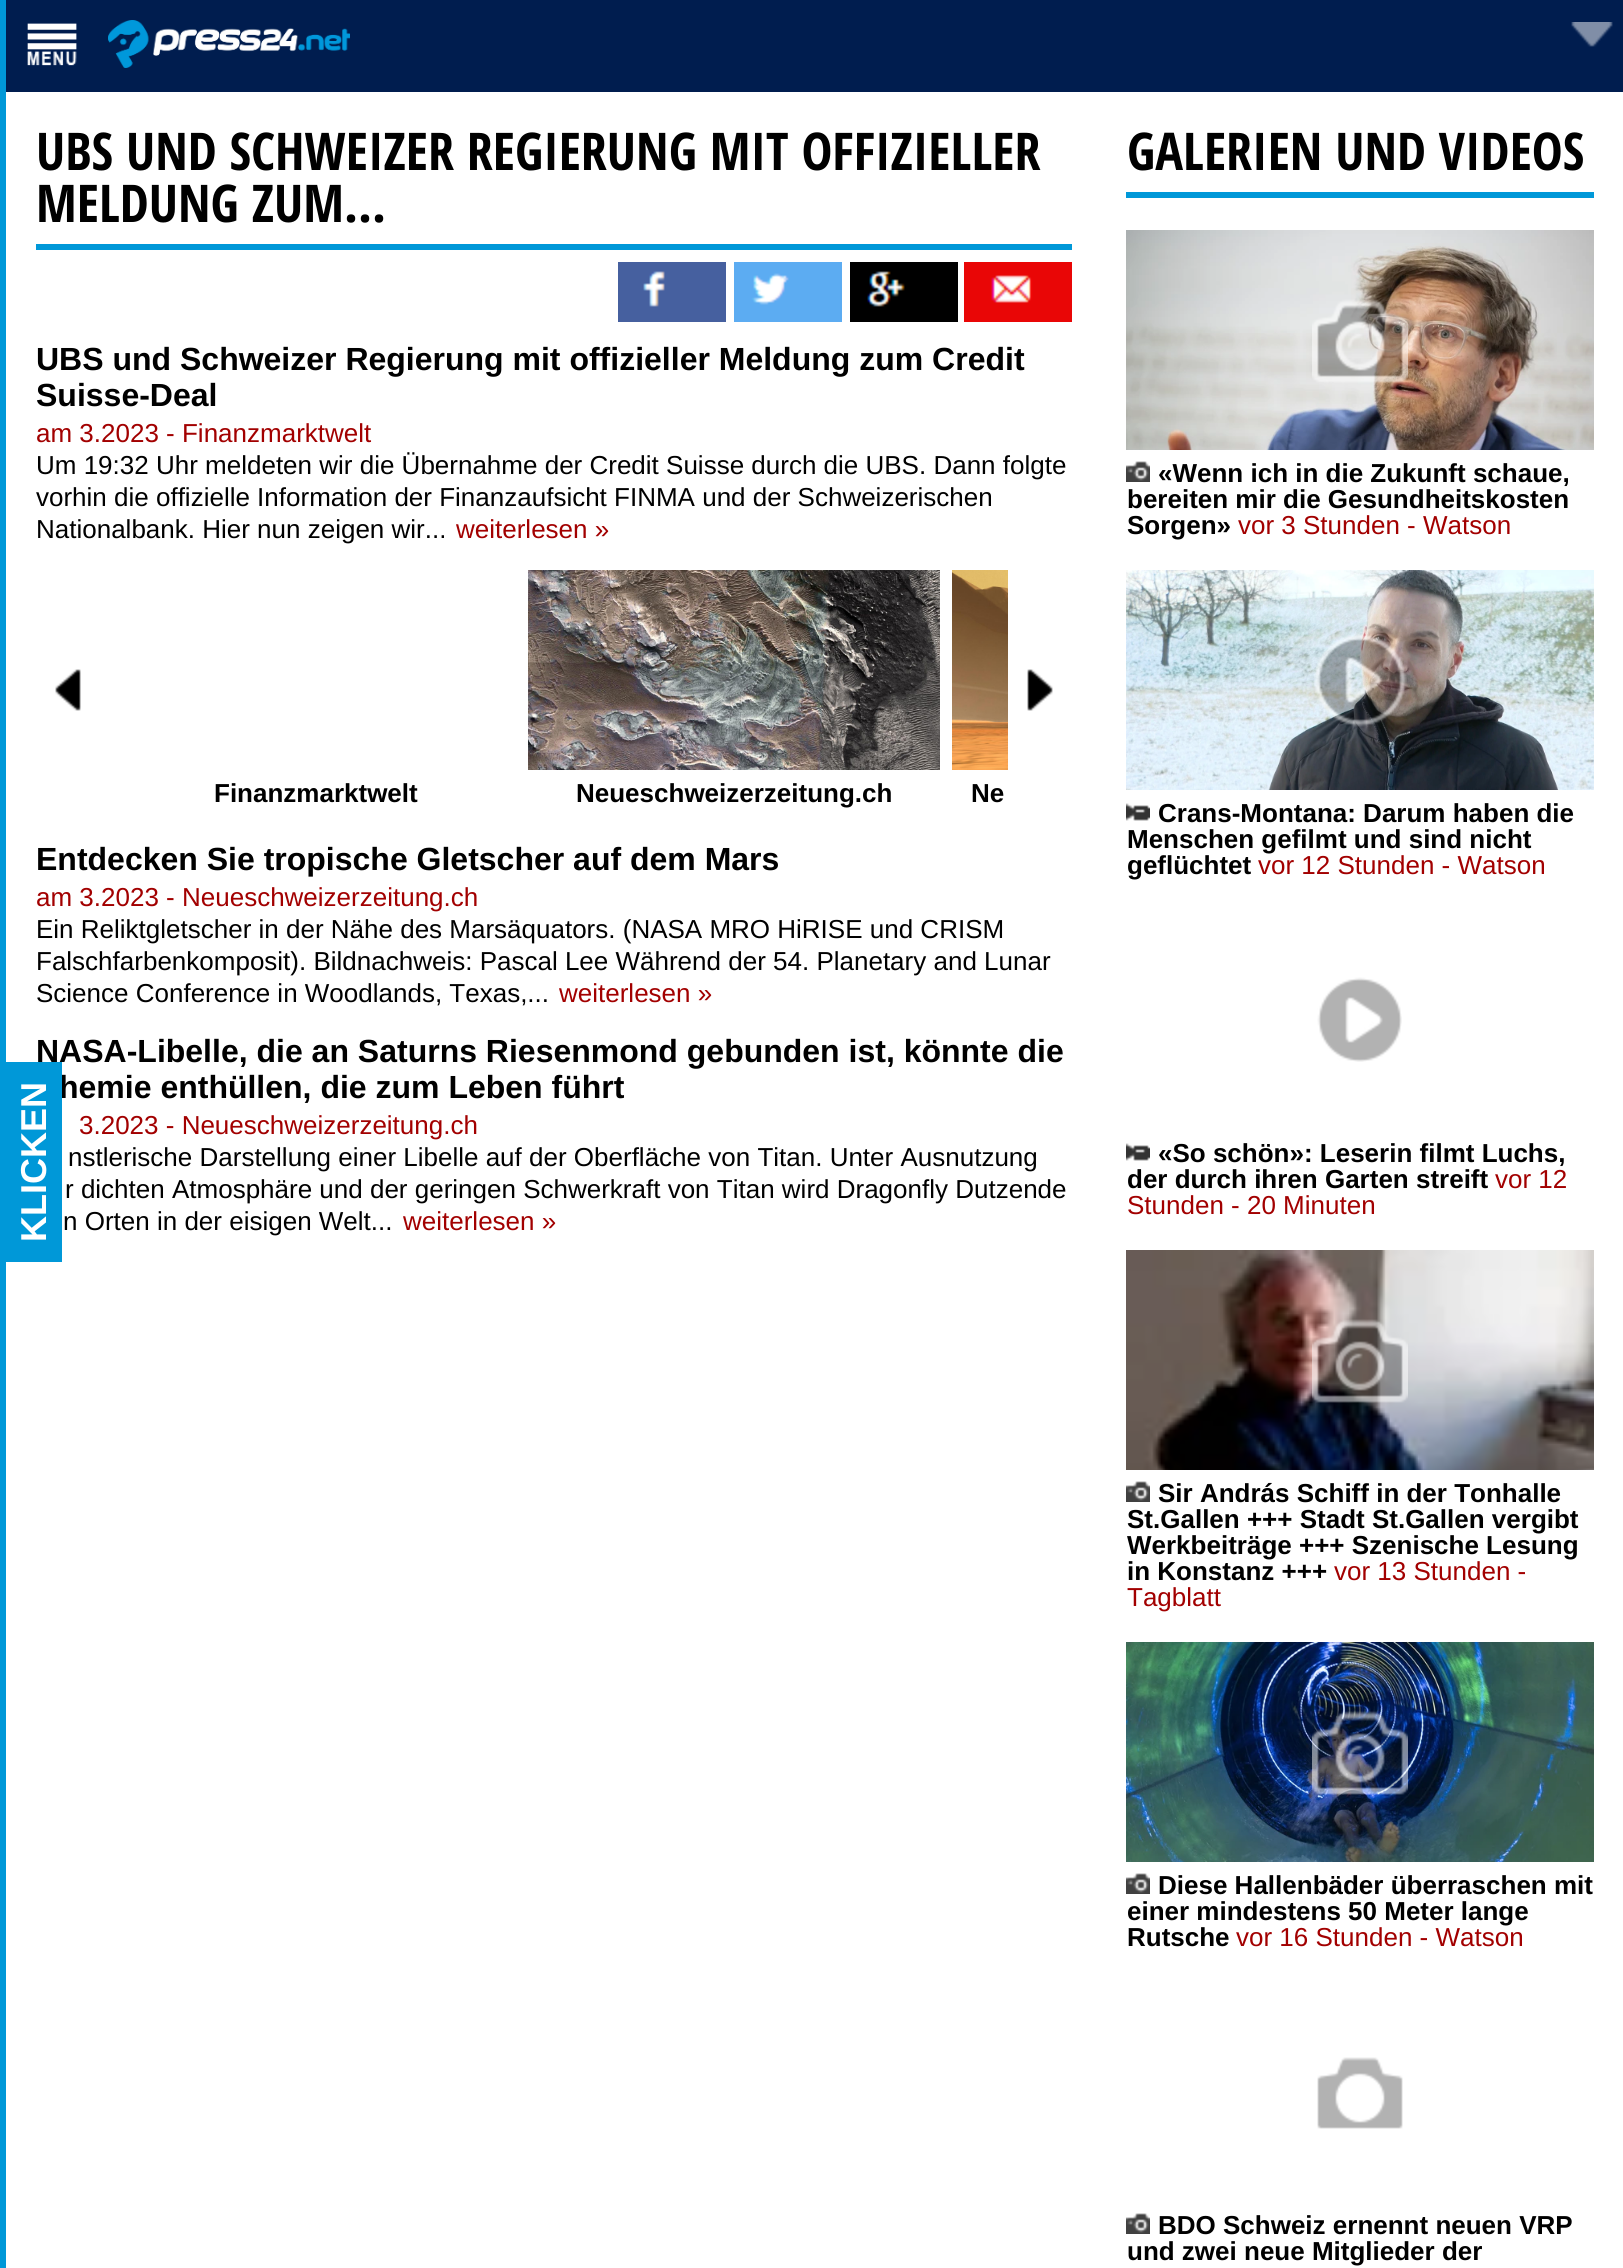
#include <cairo/cairo.h>
#include <math.h>
#include <stddef.h>

typedef struct { double x, y; const char *s; } line_t;
static cairo_t *cr;

static void rgb(unsigned color)
{
	cairo_set_source_rgb(cr, (color >> 16) / 255.0, (color >> 8 & 255) / 255.0, (color & 255) / 255.0);
}

static void image(const char *path, double x, double y, double w, double h)
{
	cairo_surface_t *image = cairo_image_surface_create_from_png(path);
	cairo_save(cr);
	cairo_set_source_surface(cr, image, x, y);
	cairo_rectangle(cr, x, y, w, h);
	cairo_fill(cr);
	cairo_restore(cr);
	cairo_surface_destroy(image);
}

int main(void) {
	cairo_surface_t *surface = cairo_image_surface_create(CAIRO_FORMAT_RGB24, 1623, 2268);
	cr = cairo_create(surface);
	cairo_font_options_t *options = cairo_font_options_create();
	cairo_font_options_set_hint_metrics(options, CAIRO_HINT_METRICS_OFF);
	cairo_font_options_set_hint_style(options, CAIRO_HINT_STYLE_NONE);
	cairo_set_font_options(cr, options);
	cairo_set_miter_limit(cr, 4);
	rgb(0xffffff);
	cairo_paint(cr);
	rgb(0x0098d8);
	cairo_rectangle(cr, 0, 0, 6, 2268);
	cairo_fill(cr);
	rgb(0x001d4f);
	cairo_rectangle(cr, 6, 0, 1617, 92);
	cairo_fill(cr);
	image("img/1.png", 27, 23, 50, 43);
	image("img/2.png", 108, 20, 242, 48);
	image("img/3.png", 1571, 22, 42, 25);
	rgb(0x0098d8);
	cairo_rectangle(cr, 36, 244, 1036, 6);
	cairo_fill(cr);
	image("img/4.png", 618, 262, 108, 60);
	image("img/5.png", 734, 262, 108, 60);
	image("img/6.png", 850, 262, 108, 60);
	image("img/7.png", 964, 262, 108, 60);
	image("img/8.png", 55, 669, 26, 42);
	image("img/9.png", 1027, 669, 26, 42);
	image("img/10.png", 528, 570, 412, 200);
	image("img/11.png", 952, 570, 56, 200);
	cairo_rectangle(cr, 1126, 192, 468, 6);
	cairo_fill(cr);
	image("img/12.png", 1126, 230, 468, 220);
	image("img/13.png", 1312, 299, 96, 84);
	image("img/14.png", 1126, 461, 24, 21);
	image("img/15.png", 1126, 570, 468, 220);
	image("img/16.png", 1314, 633, 93, 94);
	image("img/17.png", 1126, 803, 24, 18);
	image("img/18.png", 1317, 977, 85, 85);
	image("img/17.png", 1126, 1143, 24, 18);
	image("img/19.png", 1126, 1250, 468, 220);
	image("img/20.png", 1312, 1319, 96, 84);
	image("img/14.png", 1126, 1481, 24, 21);
	image("img/21.png", 1126, 1642, 468, 220);
	image("img/22.png", 1312, 1711, 96, 84);
	image("img/14.png", 1126, 1873, 24, 21);
	image("img/23.png", 1317, 2057, 86, 72);
	image("img/14.png", 1126, 2213, 24, 21);
	cairo_select_font_face(cr, "Open Sans Condensed", CAIRO_FONT_SLANT_NORMAL, CAIRO_FONT_WEIGHT_BOLD);
	cairo_set_font_size(cr, 52);
	rgb(0x000000);
	cairo_move_to(cr, 36, 170);
	cairo_show_text(cr, "UBS UND SCHWEIZER REGIERUNG MIT OFFIZIELLER");
	cairo_move_to(cr, 36, 222);
	cairo_show_text(cr, "MELDUNG ZUM...");
	cairo_select_font_face(cr, "Liberation Sans", CAIRO_FONT_SLANT_NORMAL, CAIRO_FONT_WEIGHT_BOLD);
	cairo_set_font_size(cr, 32);
	cairo_move_to(cr, 36, 370);
	cairo_show_text(cr, "UBS und Schweizer Regierung mit offizieller Meldung zum Credit");
	cairo_move_to(cr, 36, 406);
	cairo_show_text(cr, "Suisse-Deal");
	cairo_select_font_face(cr, "Liberation Sans", CAIRO_FONT_SLANT_NORMAL, CAIRO_FONT_WEIGHT_NORMAL);
	cairo_set_font_size(cr, 26);
	rgb(0xa20000);
	cairo_move_to(cr, 36, 442);
	cairo_show_text(cr, "am 3.2023 - Finanzmarktwelt");
	rgb(0x000000);
	{
		static const line_t items[] = {
			{36, 474, "Um 19:32 Uhr meldeten wir die Übernahme der Credit Suisse durch die UBS. Dann folgte"},
			{36, 506, "vorhin die offizielle Information der Finanzaufsicht FINMA und der Schweizerischen"},
			{36, 538, "Nationalbank. Hier nun zeigen wir..."},
		};
		for (size_t i = 0; i < sizeof items / sizeof *items; i++) {
			cairo_move_to(cr, items[i].x, items[i].y);
			cairo_show_text(cr, items[i].s);
		}
	}
	rgb(0xa20000);
	cairo_move_to(cr, 456, 538);
	cairo_show_text(cr, "weiterlesen »");
	cairo_select_font_face(cr, "Liberation Sans", CAIRO_FONT_SLANT_NORMAL, CAIRO_FONT_WEIGHT_BOLD);
	rgb(0x000000);
	{
		static const line_t items[] = {
			{214, 802, "Finanzmarktwelt"},
			{576, 802, "Neueschweizerzeitung.ch"},
			{971, 802, "Ne"},
		};
		for (size_t i = 0; i < sizeof items / sizeof *items; i++) {
			cairo_move_to(cr, items[i].x, items[i].y);
			cairo_show_text(cr, items[i].s);
		}
	}
	cairo_set_font_size(cr, 32);
	cairo_move_to(cr, 36, 870);
	cairo_show_text(cr, "Entdecken Sie tropische Gletscher auf dem Mars");
	cairo_select_font_face(cr, "Liberation Sans", CAIRO_FONT_SLANT_NORMAL, CAIRO_FONT_WEIGHT_NORMAL);
	cairo_set_font_size(cr, 26);
	rgb(0xa20000);
	cairo_move_to(cr, 36, 906);
	cairo_show_text(cr, "am 3.2023 - Neueschweizerzeitung.ch");
	rgb(0x000000);
	{
		static const line_t items[] = {
			{36, 938, "Ein Reliktgletscher in der Nähe des Marsäquators. (NASA MRO HiRISE und CRISM"},
			{36, 970, "Falschfarbenkomposit). Bildnachweis: Pascal Lee Während der 54. Planetary and Lunar"},
			{36, 1002, "Science Conference in Woodlands, Texas,..."},
		};
		for (size_t i = 0; i < sizeof items / sizeof *items; i++) {
			cairo_move_to(cr, items[i].x, items[i].y);
			cairo_show_text(cr, items[i].s);
		}
	}
	rgb(0xa20000);
	cairo_move_to(cr, 559, 1002);
	cairo_show_text(cr, "weiterlesen »");
	cairo_select_font_face(cr, "Liberation Sans", CAIRO_FONT_SLANT_NORMAL, CAIRO_FONT_WEIGHT_BOLD);
	cairo_set_font_size(cr, 32);
	rgb(0x000000);
	cairo_move_to(cr, 36, 1062);
	cairo_show_text(cr, "NASA-Libelle, die an Saturns Riesenmond gebunden ist, könnte die");
	cairo_move_to(cr, 59, 1098);
	cairo_show_text(cr, "hemie enthüllen, die zum Leben führt");
	rgb(0x0098d8);
	cairo_rectangle(cr, 6, 1062, 56, 200);
	cairo_fill(cr);
	cairo_set_font_size(cr, 36);
	rgb(0xffffff);
	cairo_save(cr);
	cairo_translate(cr, 46, 1242);
	cairo_rotate(cr, -90 * M_PI / 180);
	cairo_move_to(cr, 0, 0);
	cairo_show_text(cr, "KLICKEN");
	cairo_restore(cr);
	cairo_select_font_face(cr, "Liberation Sans", CAIRO_FONT_SLANT_NORMAL, CAIRO_FONT_WEIGHT_NORMAL);
	cairo_set_font_size(cr, 26);
	rgb(0xa20000);
	cairo_move_to(cr, 79, 1134);
	cairo_show_text(cr, "3.2023 - Neueschweizerzeitung.ch");
	rgb(0x000000);
	{
		static const line_t items[] = {
			{68, 1166, "nstlerische Darstellung einer Libelle auf der Oberfläche von Titan. Unter Ausnutzung"},
			{65, 1198, "r dichten Atmosphäre und der geringen Schwerkraft von Titan wird Dragonfly Dutzende"},
			{63, 1230, "n Orten in der eisigen Welt..."},
		};
		for (size_t i = 0; i < sizeof items / sizeof *items; i++) {
			cairo_move_to(cr, items[i].x, items[i].y);
			cairo_show_text(cr, items[i].s);
		}
	}
	rgb(0xa20000);
	cairo_move_to(cr, 403, 1230);
	cairo_show_text(cr, "weiterlesen »");
	cairo_select_font_face(cr, "Open Sans Condensed", CAIRO_FONT_SLANT_NORMAL, CAIRO_FONT_WEIGHT_BOLD);
	cairo_set_font_size(cr, 52);
	rgb(0x000000);
	cairo_move_to(cr, 1127, 170);
	cairo_show_text(cr, "GALERIEN UND VIDEOS");
	cairo_select_font_face(cr, "Liberation Sans", CAIRO_FONT_SLANT_NORMAL, CAIRO_FONT_WEIGHT_BOLD);
	cairo_set_font_size(cr, 26);
	{
		static const line_t items[] = {
			{1158, 482, "«Wenn ich in die Zukunft schaue,"},
			{1127, 508, "bereiten mir die Gesundheitskosten"},
			{1127, 534, "Sorgen»"},
		};
		for (size_t i = 0; i < sizeof items / sizeof *items; i++) {
			cairo_move_to(cr, items[i].x, items[i].y);
			cairo_show_text(cr, items[i].s);
		}
	}
	cairo_select_font_face(cr, "Liberation Sans", CAIRO_FONT_SLANT_NORMAL, CAIRO_FONT_WEIGHT_NORMAL);
	rgb(0xa20000);
	cairo_move_to(cr, 1238, 534);
	cairo_show_text(cr, "vor 3 Stunden - Watson");
	cairo_select_font_face(cr, "Liberation Sans", CAIRO_FONT_SLANT_NORMAL, CAIRO_FONT_WEIGHT_BOLD);
	rgb(0x000000);
	{
		static const line_t items[] = {
			{1158, 822, "Crans-Montana: Darum haben die"},
			{1127, 848, "Menschen gefilmt und sind nicht"},
			{1127, 874, "geflüchtet"},
		};
		for (size_t i = 0; i < sizeof items / sizeof *items; i++) {
			cairo_move_to(cr, items[i].x, items[i].y);
			cairo_show_text(cr, items[i].s);
		}
	}
	cairo_select_font_face(cr, "Liberation Sans", CAIRO_FONT_SLANT_NORMAL, CAIRO_FONT_WEIGHT_NORMAL);
	rgb(0xa20000);
	cairo_move_to(cr, 1258, 874);
	cairo_show_text(cr, "vor 12 Stunden - Watson");
	cairo_select_font_face(cr, "Liberation Sans", CAIRO_FONT_SLANT_NORMAL, CAIRO_FONT_WEIGHT_BOLD);
	rgb(0x000000);
	cairo_move_to(cr, 1158, 1162);
	cairo_show_text(cr, "«So schön»: Leserin filmt Luchs,");
	cairo_move_to(cr, 1127, 1188);
	cairo_show_text(cr, "der durch ihren Garten streift");
	cairo_select_font_face(cr, "Liberation Sans", CAIRO_FONT_SLANT_NORMAL, CAIRO_FONT_WEIGHT_NORMAL);
	rgb(0xa20000);
	cairo_move_to(cr, 1495, 1188);
	cairo_show_text(cr, "vor 12");
	cairo_move_to(cr, 1127, 1214);
	cairo_show_text(cr, "Stunden - 20 Minuten");
	cairo_select_font_face(cr, "Liberation Sans", CAIRO_FONT_SLANT_NORMAL, CAIRO_FONT_WEIGHT_BOLD);
	rgb(0x000000);
	{
		static const line_t items[] = {
			{1158, 1502, "Sir András Schiff in der Tonhalle"},
			{1127, 1528, "St.Gallen +++ Stadt St.Gallen vergibt"},
			{1127, 1554, "Werkbeiträge +++ Szenische Lesung"},
			{1127, 1580, "in Konstanz +++"},
		};
		for (size_t i = 0; i < sizeof items / sizeof *items; i++) {
			cairo_move_to(cr, items[i].x, items[i].y);
			cairo_show_text(cr, items[i].s);
		}
	}
	cairo_select_font_face(cr, "Liberation Sans", CAIRO_FONT_SLANT_NORMAL, CAIRO_FONT_WEIGHT_NORMAL);
	rgb(0xa20000);
	cairo_move_to(cr, 1334, 1580);
	cairo_show_text(cr, "vor 13 Stunden -");
	cairo_move_to(cr, 1127, 1606);
	cairo_show_text(cr, "Tagblatt");
	cairo_select_font_face(cr, "Liberation Sans", CAIRO_FONT_SLANT_NORMAL, CAIRO_FONT_WEIGHT_BOLD);
	rgb(0x000000);
	{
		static const line_t items[] = {
			{1158, 1894, "Diese Hallenbäder überraschen mit"},
			{1127, 1920, "einer mindestens 50 Meter lange"},
			{1127, 1946, "Rutsche"},
		};
		for (size_t i = 0; i < sizeof items / sizeof *items; i++) {
			cairo_move_to(cr, items[i].x, items[i].y);
			cairo_show_text(cr, items[i].s);
		}
	}
	cairo_select_font_face(cr, "Liberation Sans", CAIRO_FONT_SLANT_NORMAL, CAIRO_FONT_WEIGHT_NORMAL);
	rgb(0xa20000);
	cairo_move_to(cr, 1236, 1946);
	cairo_show_text(cr, "vor 16 Stunden - Watson");
	cairo_select_font_face(cr, "Liberation Sans", CAIRO_FONT_SLANT_NORMAL, CAIRO_FONT_WEIGHT_BOLD);
	rgb(0x000000);
	cairo_move_to(cr, 1158, 2234);
	cairo_show_text(cr, "BDO Schweiz ernennt neuen VRP");
	cairo_move_to(cr, 1127, 2260);
	cairo_show_text(cr, "und zwei neue Mitglieder der");
	cairo_surface_write_to_png(surface, "page.png");
	cairo_font_options_destroy(options);
	cairo_destroy(cr);
	cairo_surface_destroy(surface);
	return 0;
}
